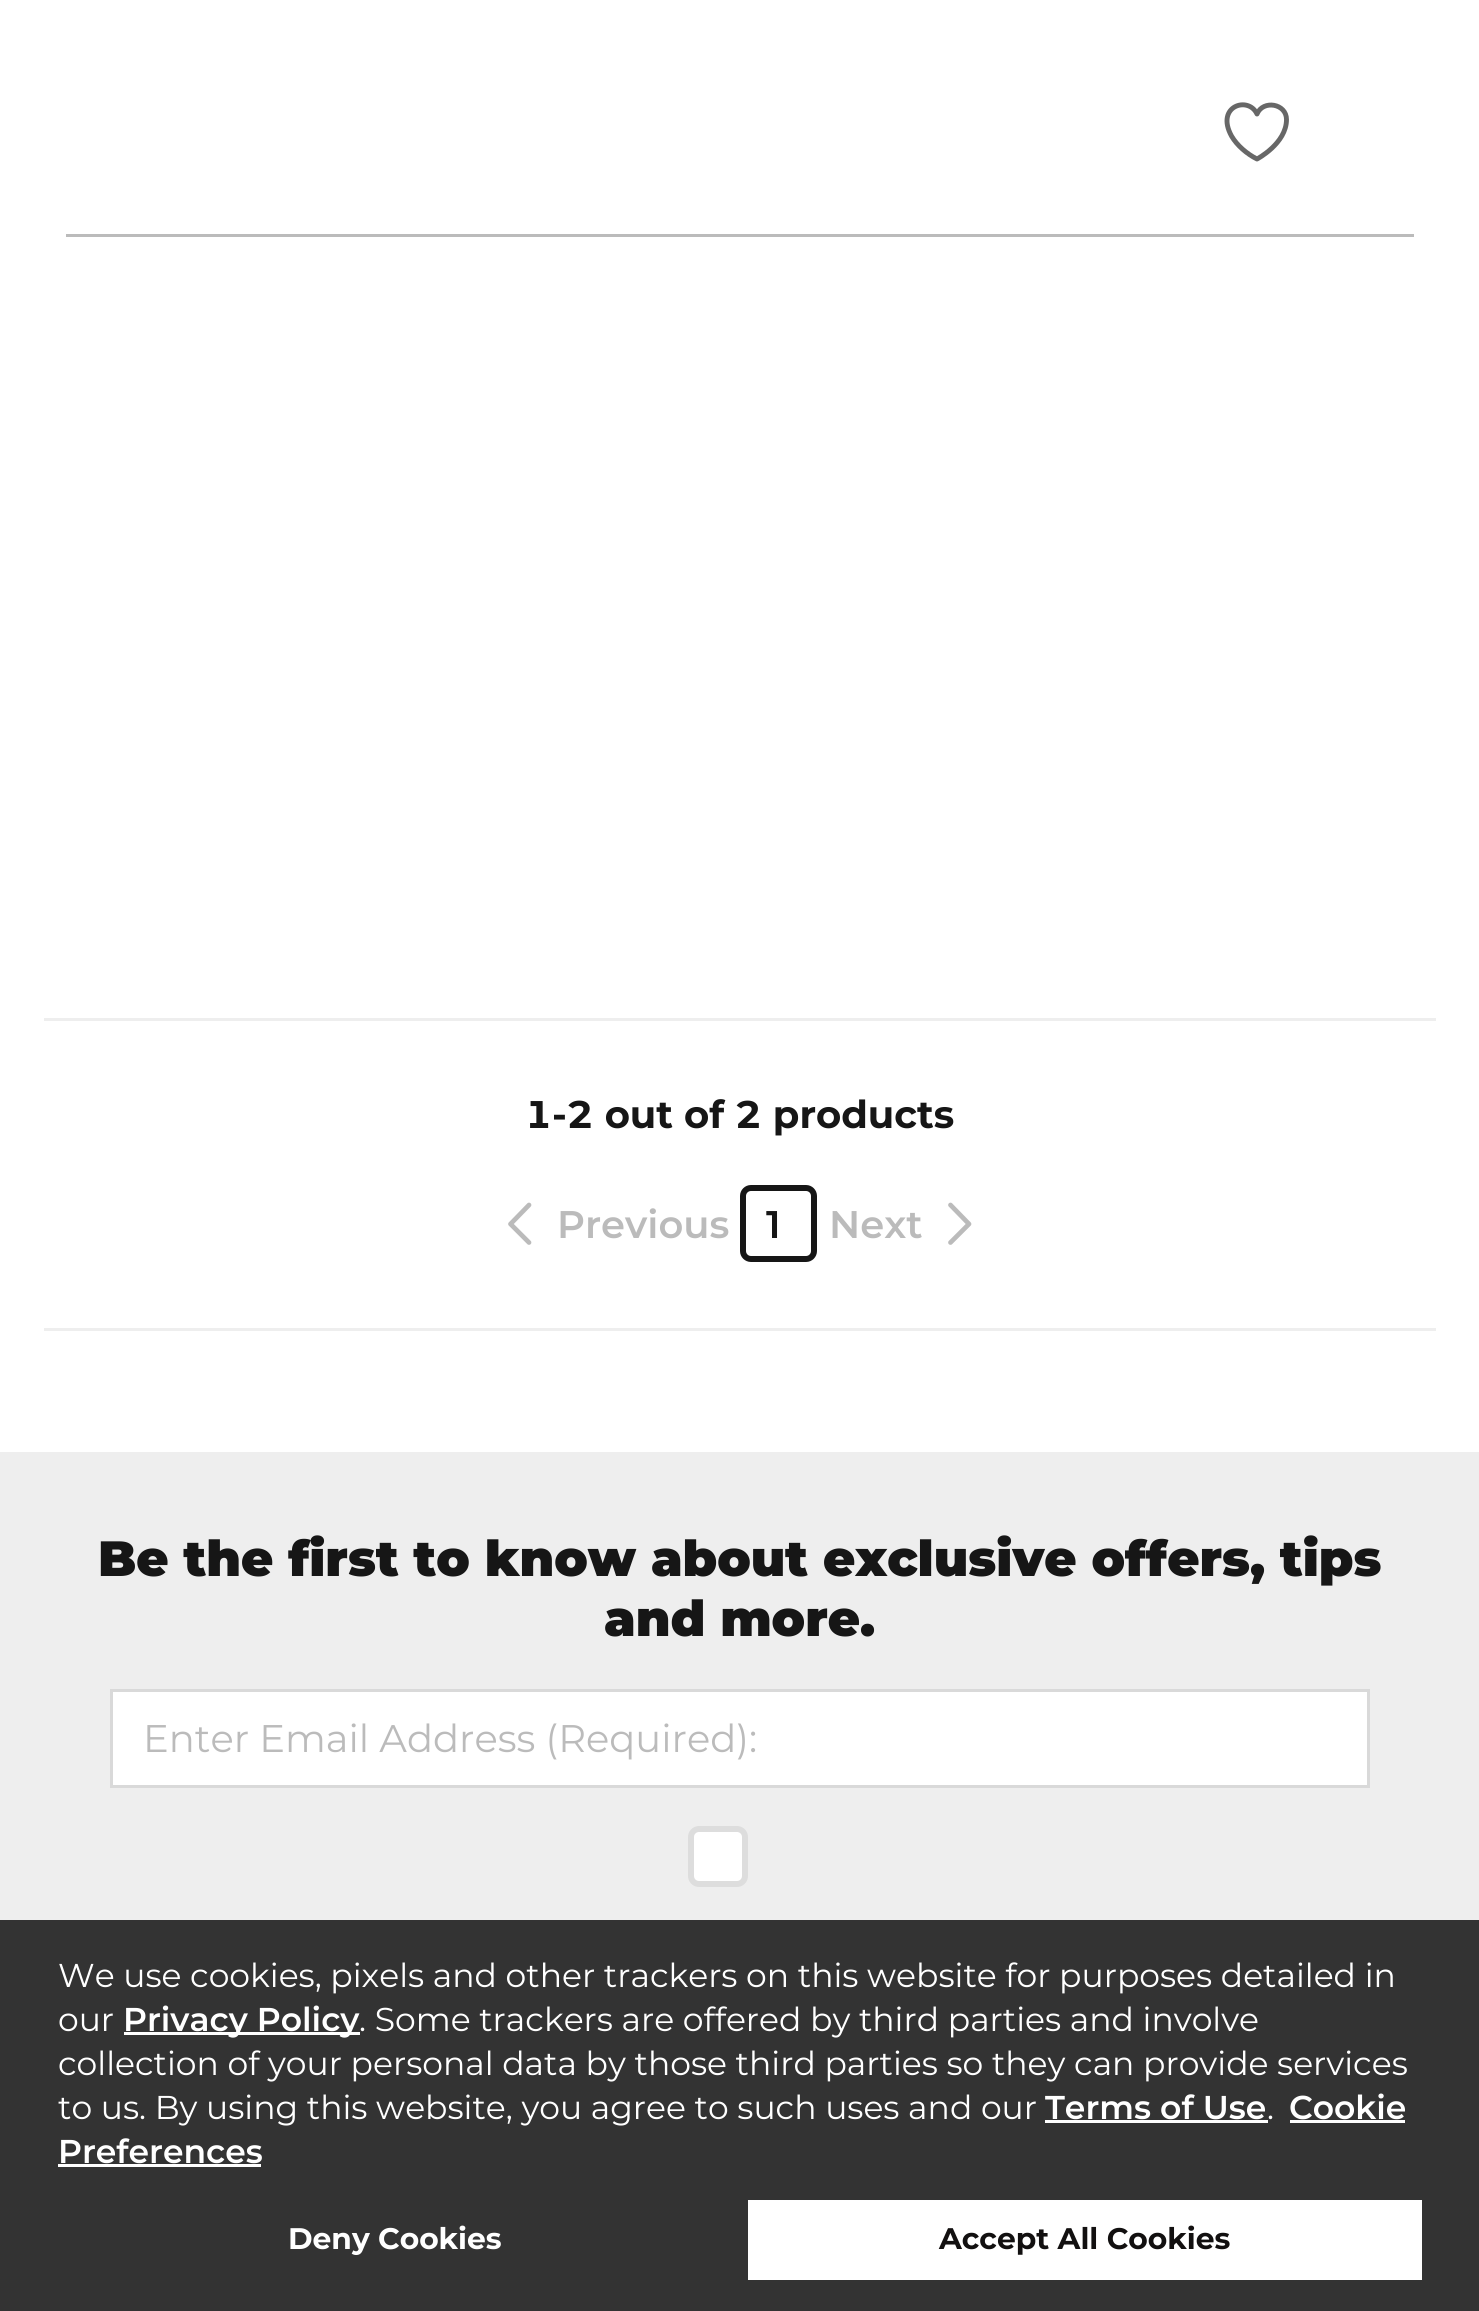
#include <cairo/cairo.h>
#include <math.h>
#include <stddef.h>

typedef struct { double x, y; const char *s; } line_t;
typedef struct { double x, y, w, h; unsigned color; } box_t;
static cairo_t *cr;

static void rgb(unsigned color)
{
	cairo_set_source_rgb(cr, (color >> 16) / 255.0, (color >> 8 & 255) / 255.0, (color & 255) / 255.0);
}

static void rrect(double x, double y, double w, double h, double r)
{
	cairo_new_sub_path(cr);
	cairo_arc(cr, x + w - r, y + h - r, r, 0, M_PI / 2);
	cairo_arc(cr, x + r, y + h - r, r, M_PI / 2, M_PI);
	cairo_arc(cr, x + r, y + r, r, M_PI, 1.5 * M_PI);
	cairo_arc(cr, x + w - r, y + r, r, 1.5 * M_PI, 2 * M_PI);
	cairo_close_path(cr);
}

int main(void) {
	cairo_surface_t *surface = cairo_image_surface_create(CAIRO_FORMAT_RGB24, 1479, 2311);
	cr = cairo_create(surface);
	cairo_font_options_t *options = cairo_font_options_create();
	cairo_font_options_set_hint_metrics(options, CAIRO_HINT_METRICS_OFF);
	cairo_font_options_set_hint_style(options, CAIRO_HINT_STYLE_NONE);
	cairo_set_font_options(cr, options);
	cairo_set_miter_limit(cr, 4);
	rgb(0xffffff);
	cairo_paint(cr);
	rgb(0xbbbbbb);
	cairo_rectangle(cr, 66, 234, 1348, 3);
	cairo_fill(cr);
	cairo_new_path(cr);
	cairo_move_to(cr, 1286.5, 119.5);
	cairo_curve_to(cr, 1286.5, 103.5, 1263, 99.5, 1257, 114);
	cairo_curve_to(cr, 1248.5, 95.5, 1215, 106, 1231.5, 136);
	cairo_curve_to(cr, 1237, 145.5, 1247, 154, 1257, 159);
	cairo_curve_to(cr, 1257, 159, 1286.5, 143.5, 1286.5, 119.5);
	cairo_close_path(cr);
	rgb(0x676767);
	cairo_set_line_width(cr, 4.9);
	cairo_set_line_cap(cr, CAIRO_LINE_CAP_ROUND);
	cairo_set_line_join(cr, CAIRO_LINE_JOIN_ROUND);
	cairo_stroke(cr);
	rgb(0xeeeeee);
	cairo_rectangle(cr, 44, 1018, 1392, 3);
	cairo_fill(cr);
	cairo_rectangle(cr, 44, 1328, 1392, 3);
	cairo_fill(cr);
	cairo_new_path(cr);
	cairo_move_to(cr, 529, 1242.5);
	cairo_line_to(cr, 510.5, 1224);
	cairo_line_to(cr, 529, 1205);
	rgb(0xbbbbbb);
	cairo_set_line_width(cr, 4.7);
	cairo_stroke(cr);
	rrect(743, 1188, 71, 71, 8);
	rgb(0x161616);
	cairo_set_line_width(cr, 6);
	cairo_set_line_cap(cr, CAIRO_LINE_CAP_BUTT);
	cairo_set_line_join(cr, CAIRO_LINE_JOIN_MITER);
	cairo_stroke(cr);
	cairo_new_path(cr);
	cairo_move_to(cr, 950.5, 1205);
	cairo_line_to(cr, 969, 1224);
	cairo_line_to(cr, 950.5, 1242.5);
	rgb(0xbbbbbb);
	cairo_set_line_width(cr, 4.7);
	cairo_set_line_cap(cr, CAIRO_LINE_CAP_ROUND);
	cairo_set_line_join(cr, CAIRO_LINE_JOIN_ROUND);
	cairo_stroke(cr);
	rgb(0xeeeeee);
	cairo_rectangle(cr, 0, 1452, 1479, 468);
	cairo_fill(cr);
	rgb(0xffffff);
	cairo_rectangle(cr, 111.5, 1690.5, 1257, 96);
	cairo_fill_preserve(cr);
	rgb(0xd9d9d9);
	cairo_set_line_width(cr, 3);
	cairo_set_line_cap(cr, CAIRO_LINE_CAP_BUTT);
	cairo_set_line_join(cr, CAIRO_LINE_JOIN_MITER);
	cairo_stroke(cr);
	rgb(0xffffff);
	rrect(691, 1829, 54, 55, 8);
	cairo_fill_preserve(cr);
	rgb(0xdddddd);
	cairo_set_line_width(cr, 6);
	cairo_stroke(cr);
	{
		static const box_t items[] = {
			{0, 1920, 1479, 391, 0x333333},
			{124, 2032, 236, 3, 0xffffff},
			{1045, 2120, 223, 3, 0xffffff},
			{1290, 2120, 115, 3, 0xffffff},
			{58, 2164, 203, 3, 0xffffff},
			{748, 2200, 674, 80, 0xffffff},
		};
		for (size_t i = 0; i < sizeof items / sizeof *items; i++) {
			rgb(items[i].color);
			cairo_rectangle(cr, items[i].x, items[i].y, items[i].w, items[i].h);
			cairo_fill(cr);
		}
	}
	cairo_select_font_face(cr, "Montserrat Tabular", CAIRO_FONT_SLANT_NORMAL, CAIRO_FONT_WEIGHT_BOLD);
	cairo_set_font_size(cr, 38.5);
	rgb(0x161616);
	cairo_move_to(cr, 525, 1128);
	cairo_show_text(cr, "1-2 out of 2 products");
	cairo_select_font_face(cr, "Montserrat SemiBold", CAIRO_FONT_SLANT_NORMAL, CAIRO_FONT_WEIGHT_NORMAL);
	rgb(0xbbbbbb);
	cairo_move_to(cr, 557, 1238);
	cairo_show_text(cr, "Previous");
	rgb(0x161616);
	cairo_move_to(cr, 766, 1238);
	cairo_show_text(cr, "1");
	rgb(0xbbbbbb);
	cairo_move_to(cr, 829, 1238);
	cairo_show_text(cr, "Next");
	cairo_select_font_face(cr, "Montserrat Black", CAIRO_FONT_SLANT_NORMAL, CAIRO_FONT_WEIGHT_NORMAL);
	cairo_set_font_size(cr, 49.5);
	rgb(0x161616);
	cairo_move_to(cr, 98, 1576);
	cairo_show_text(cr, "Be the first to know about exclusive offers, tips");
	cairo_move_to(cr, 604, 1636);
	cairo_show_text(cr, "and more.");
	cairo_select_font_face(cr, "Montserrat", CAIRO_FONT_SLANT_NORMAL, CAIRO_FONT_WEIGHT_NORMAL);
	cairo_set_font_size(cr, 38.5);
	rgb(0xbbbbbb);
	cairo_move_to(cr, 143, 1752);
	cairo_show_text(cr, "Enter Email Address (Required):");
	cairo_select_font_face(cr, "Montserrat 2", CAIRO_FONT_SLANT_NORMAL, CAIRO_FONT_WEIGHT_NORMAL);
	cairo_set_font_size(cr, 33);
	rgb(0xffffff);
	cairo_move_to(cr, 58, 1987);
	cairo_show_text(cr, "We use cookies, pixels and other trackers on this website for purposes detailed in");
	cairo_move_to(cr, 58, 2031);
	cairo_show_text(cr, "our");
	cairo_select_font_face(cr, "Montserrat 2 SemiBold", CAIRO_FONT_SLANT_NORMAL, CAIRO_FONT_WEIGHT_NORMAL);
	cairo_move_to(cr, 123, 2031);
	cairo_show_text(cr, "Privacy Policy");
	cairo_select_font_face(cr, "Montserrat 2", CAIRO_FONT_SLANT_NORMAL, CAIRO_FONT_WEIGHT_NORMAL);
	{
		static const line_t items[] = {
			{359, 2031, ". Some trackers are offered by third parties and involve"},
			{58, 2075, "collection of your personal data by those third parties so they can provide services"},
			{58, 2119, "to us. By using this website, you agree to such uses and our"},
		};
		for (size_t i = 0; i < sizeof items / sizeof *items; i++) {
			cairo_move_to(cr, items[i].x, items[i].y);
			cairo_show_text(cr, items[i].s);
		}
	}
	cairo_select_font_face(cr, "Montserrat 2 SemiBold", CAIRO_FONT_SLANT_NORMAL, CAIRO_FONT_WEIGHT_NORMAL);
	cairo_move_to(cr, 1045, 2119);
	cairo_show_text(cr, "Terms of Use");
	cairo_select_font_face(cr, "Montserrat 2", CAIRO_FONT_SLANT_NORMAL, CAIRO_FONT_WEIGHT_NORMAL);
	cairo_move_to(cr, 1267, 2119);
	cairo_show_text(cr, ".");
	cairo_select_font_face(cr, "Montserrat 2 SemiBold", CAIRO_FONT_SLANT_NORMAL, CAIRO_FONT_WEIGHT_NORMAL);
	cairo_move_to(cr, 1289, 2119);
	cairo_show_text(cr, "Cookie");
	cairo_move_to(cr, 58, 2163);
	cairo_show_text(cr, "Preferences");
	cairo_select_font_face(cr, "Montserrat", CAIRO_FONT_SLANT_NORMAL, CAIRO_FONT_WEIGHT_BOLD);
	cairo_set_font_size(cr, 29.75);
	cairo_move_to(cr, 288, 2249);
	cairo_show_text(cr, "Deny Cookies");
	rgb(0x121010);
	cairo_move_to(cr, 939, 2249);
	cairo_show_text(cr, "Accept All Cookies");
	cairo_surface_write_to_png(surface, "page.png");
	cairo_font_options_destroy(options);
	cairo_destroy(cr);
	cairo_surface_destroy(surface);
	return 0;
}
